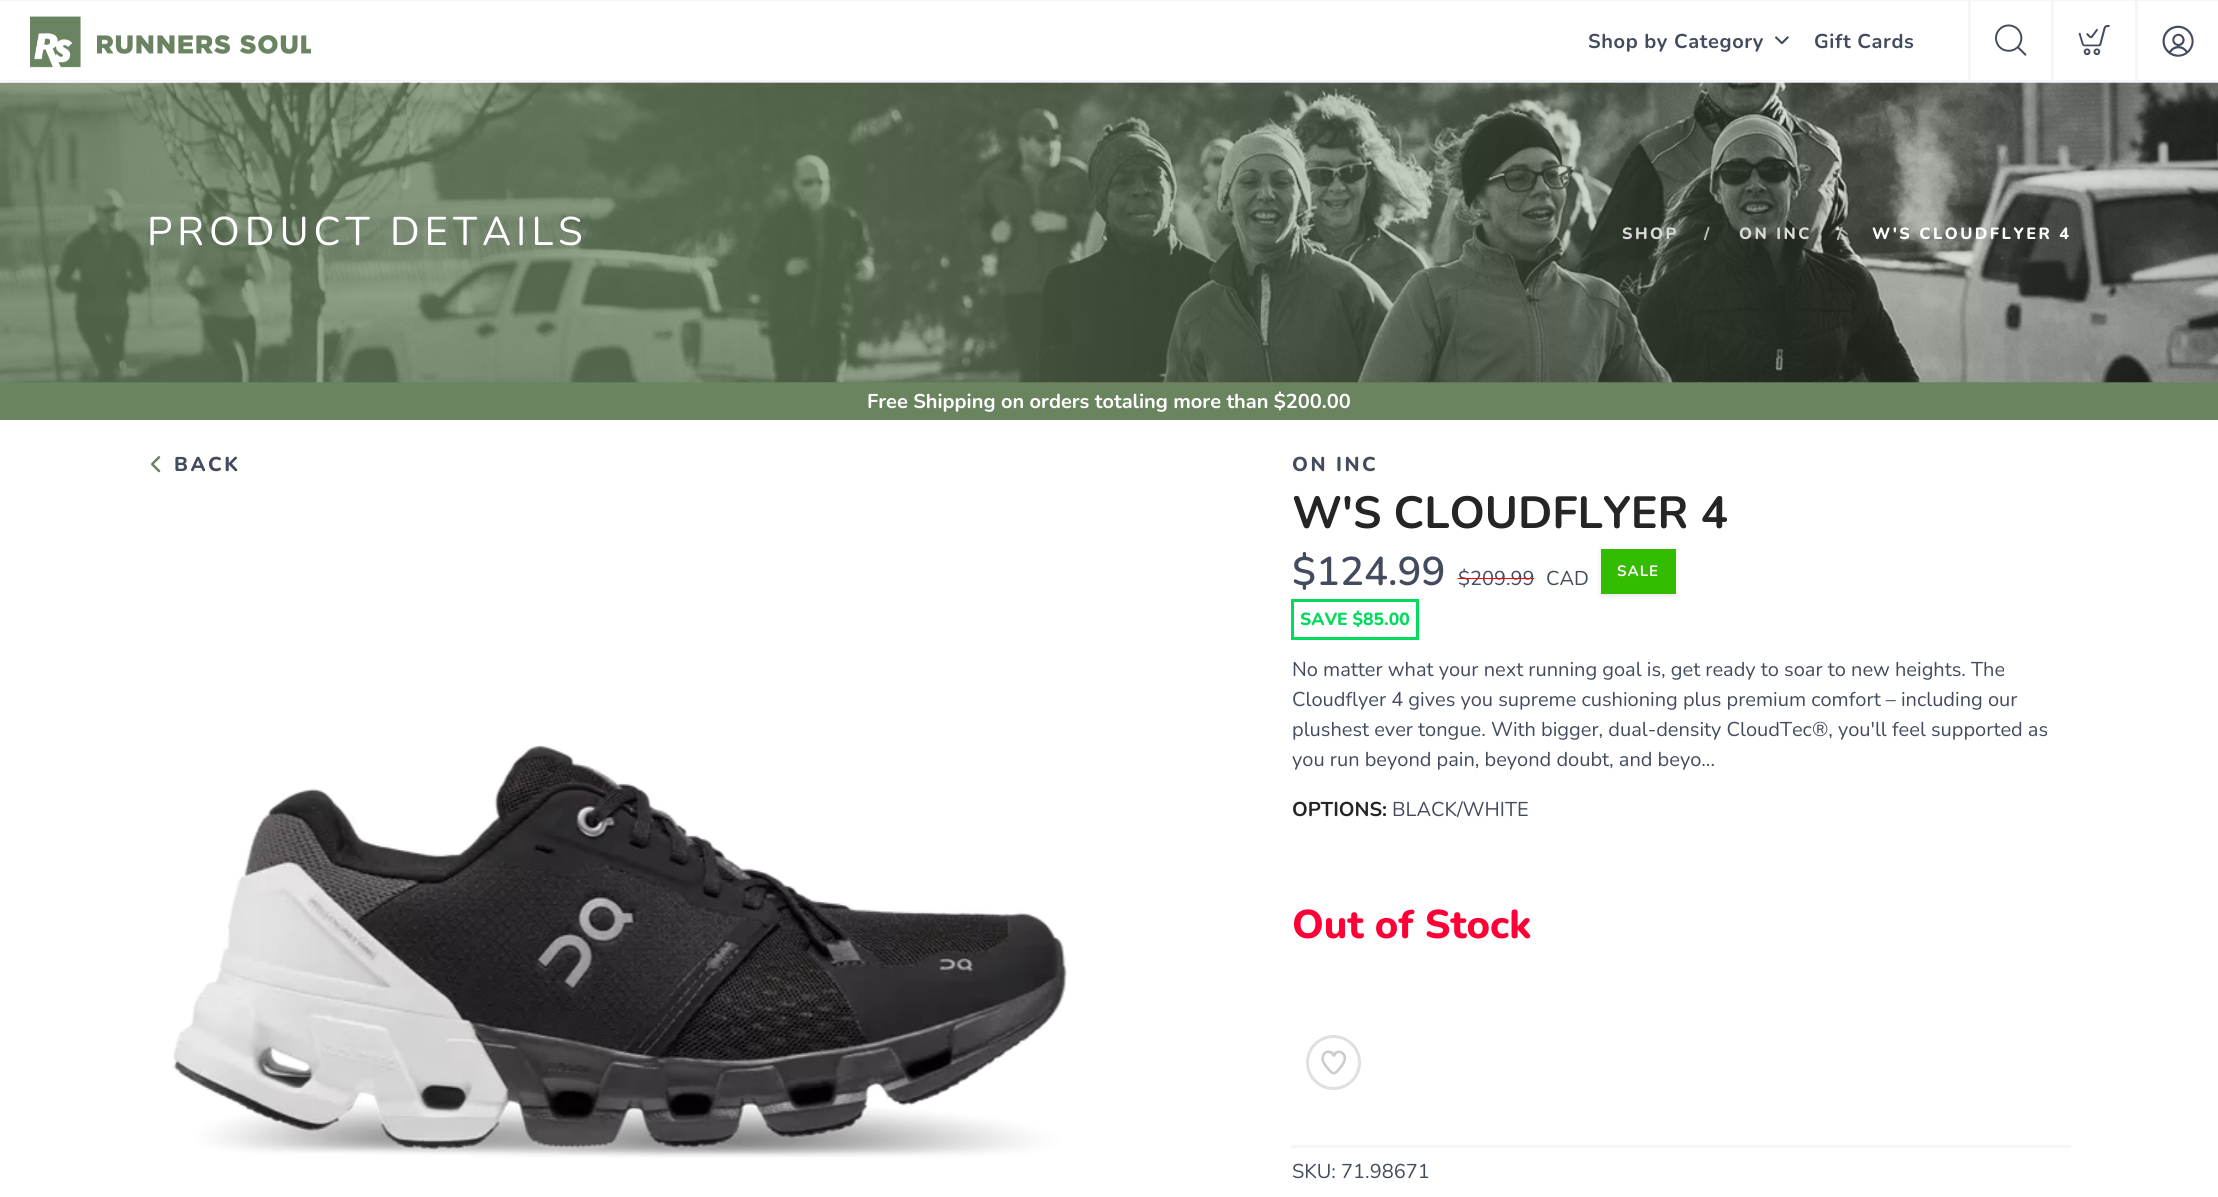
#include <cairo/cairo.h>
#include <math.h>
#include <stddef.h>

typedef struct { double x, y; const char *s; } line_t;
static cairo_t *cr;

static void rgb(unsigned color)
{
	cairo_set_source_rgb(cr, (color >> 16) / 255.0, (color >> 8 & 255) / 255.0, (color & 255) / 255.0);
}

static void tracked(double x, double y, const char *s, double letter, double word)
{
	cairo_move_to(cr, x, y);
	while (*s) {
		char ch[5] = {0};
		int n = 0;
		do ch[n++] = *s++; while ((*s & 0xC0) == 0x80);
		cairo_show_text(cr, ch);
		cairo_rel_move_to(cr, letter + word * (*ch == ' '), 0);
	}
}

static void rrect(double x, double y, double w, double h, double r)
{
	cairo_new_sub_path(cr);
	cairo_arc(cr, x + w - r, y + h - r, r, 0, M_PI / 2);
	cairo_arc(cr, x + r, y + h - r, r, M_PI / 2, M_PI);
	cairo_arc(cr, x + r, y + r, r, M_PI, 1.5 * M_PI);
	cairo_arc(cr, x + w - r, y + r, r, 1.5 * M_PI, 2 * M_PI);
	cairo_close_path(cr);
}

static void soft_shadow(double x, double y, double w, double h, double r, double blur, double alpha)
{
	cairo_push_group_with_content(cr, CAIRO_CONTENT_ALPHA);
	cairo_set_operator(cr, CAIRO_OPERATOR_SOURCE);
	for (int i = 15; i >= -15 && fmin(w, h) + blur * i / 3 > 0; i -= 2) {
		double e = blur * i / 6;
		cairo_set_source_rgba(cr, 0, 0, 0, alpha * erfc((i - 1) / 8.5) / 2);
		rrect(x - e, y - e, w + 2 * e, h + 2 * e, fmax(0, fmin(r + e + blur * .6, fmin(w, h) / 2 + e)));
		cairo_fill(cr);
	}
	cairo_pattern_t *soft = cairo_pop_group(cr);
	cairo_mask(cr, soft);
	cairo_pattern_destroy(soft);
}

static void image(const char *path, double x, double y, double w, double h)
{
	cairo_surface_t *image = cairo_image_surface_create_from_png(path);
	cairo_save(cr);
	cairo_set_source_surface(cr, image, x, y);
	cairo_rectangle(cr, x, y, w, h);
	cairo_fill(cr);
	cairo_restore(cr);
	cairo_surface_destroy(image);
}

int main(void) {
	cairo_surface_t *surface = cairo_image_surface_create(CAIRO_FORMAT_RGB24, 2218, 1197);
	cr = cairo_create(surface);
	cairo_font_options_t *options = cairo_font_options_create();
	cairo_font_options_set_hint_metrics(options, CAIRO_HINT_METRICS_OFF);
	cairo_font_options_set_hint_style(options, CAIRO_HINT_STYLE_NONE);
	cairo_set_font_options(cr, options);
	cairo_set_miter_limit(cr, 4);
	cairo_pattern_t *gradient;
	rgb(0xffffff);
	cairo_paint(cr);
	rgb(0xf5f6fa);
	cairo_rectangle(cr, 0, 0, 2218, 1);
	cairo_fill(cr);
	cairo_rectangle(cr, 0, 80, 2218, 3);
	cairo_fill(cr);
	image("img/1.png", 30, 16, 282, 52);
	image("img/2.png", 1775, 36, 14, 9);
	cairo_rectangle(cr, 1968, 1, 3, 82);
	cairo_fill(cr);
	image("img/3.png", 1995, 24, 32, 32);
	cairo_rectangle(cr, 2051, 1, 3, 82);
	cairo_fill(cr);
	image("img/4.png", 2078, 25, 32, 31);
	cairo_rectangle(cr, 2135, 1, 3, 82);
	cairo_fill(cr);
	image("img/5.png", 2162, 25, 32, 32);
	rgb(0x6a845f);
	cairo_rectangle(cr, 0, 382, 2218, 38);
	cairo_fill(cr);
	image("img/6.png", 0, 82, 2218, 301);
	gradient = cairo_pattern_create_linear(0, 233, 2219, 232);
	cairo_pattern_add_color_stop_rgba(gradient, 0.3, 0.416, 0.518, 0.373, 0.7);
	cairo_pattern_add_color_stop_rgba(gradient, 1, 0.416, 0.518, 0.373, 0.07);
	cairo_set_source(cr, gradient);
	cairo_pattern_destroy(gradient);
	cairo_rectangle(cr, 0, 83, 2218, 300);
	cairo_fill(cr);
	image("img/7.png", 151, 456, 10, 17);
	image("img/8.png", 173, 745, 894, 413);
	rgb(0x000000);
	soft_shadow(1601, 551, 75, 45, 0, 2, 0.05);
	soft_shadow(1601, 551, 75, 45, 0, 3, 0.05);
	rgb(0x33bc00);
	cairo_rectangle(cr, 1601, 549, 75, 45);
	cairo_fill(cr);
	cairo_rectangle(cr, 1292.5, 600.5, 125, 38);
	rgb(0x03db5c);
	cairo_set_line_width(cr, 3);
	cairo_stroke(cr);
	cairo_arc(cr, 1333.5, 1062.5, 26, 0, 2 * M_PI);
	rgb(0xe0e0e0);
	cairo_stroke(cr);
	image("img/9.png", 1321, 1050, 25, 25);
	rgb(0xf5f6fa);
	cairo_rectangle(cr, 1291, 1145, 780, 3);
	cairo_fill(cr);
	cairo_select_font_face(cr, "Nunito", CAIRO_FONT_SLANT_NORMAL, CAIRO_FONT_WEIGHT_BOLD);
	cairo_set_font_size(cr, 20);
	rgb(0x434c5e);
	tracked(1588, 48, "Shop by Category", 0.6, 0);
	tracked(1814, 48, "Gift Cards", 0.6, 0);
	cairo_select_font_face(cr, "Nunito", CAIRO_FONT_SLANT_NORMAL, CAIRO_FONT_WEIGHT_NORMAL);
	cairo_set_font_size(cr, 40);
	rgb(0xffffff);
	tracked(147, 245, "PRODUCT DETAILS", 5, 0);
	cairo_select_font_face(cr, "Nunito ExtraBold", CAIRO_FONT_SLANT_NORMAL, CAIRO_FONT_WEIGHT_NORMAL);
	cairo_set_font_size(cr, 16.25);
	rgb(0xd9dad8);
	tracked(1622, 239, "SHOP", 2.5, 0);
	rgb(0xbbbbbb);
	tracked(1704, 239, "/", 2.5, 0);
	rgb(0xd9dad8);
	tracked(1739, 239, "ON INC", 2.5, 0);
	rgb(0xbbbbbb);
	tracked(1837, 239, "/", 2.5, 0);
	rgb(0xffffff);
	tracked(1872, 239, "W'S CLOUDFLYER 4", 2.5, 0);
	cairo_select_font_face(cr, "Nunito", CAIRO_FONT_SLANT_NORMAL, CAIRO_FONT_WEIGHT_BOLD);
	cairo_set_font_size(cr, 20);
	cairo_move_to(cr, 867, 408);
	cairo_show_text(cr, "Free Shipping on orders totaling more than $200.00");
	cairo_select_font_face(cr, "Nunito ExtraBold", CAIRO_FONT_SLANT_NORMAL, CAIRO_FONT_WEIGHT_NORMAL);
	rgb(0x434c5e);
	tracked(174, 471, "BACK", 2.5, 0);
	tracked(1292, 471, "ON INC", 2.5, 0);
	cairo_select_font_face(cr, "Nunito", CAIRO_FONT_SLANT_NORMAL, CAIRO_FONT_WEIGHT_BOLD);
	cairo_set_font_size(cr, 45);
	rgb(0x252525);
	cairo_move_to(cr, 1292, 528);
	cairo_show_text(cr, "W'S CLOUDFLYER 4");
	cairo_select_font_face(cr, "Nunito SemiBold", CAIRO_FONT_SLANT_NORMAL, CAIRO_FONT_WEIGHT_NORMAL);
	cairo_set_font_size(cr, 40);
	rgb(0x434c5e);
	cairo_move_to(cr, 1292, 585);
	cairo_show_text(cr, "$124.99");
	cairo_select_font_face(cr, "Nunito", CAIRO_FONT_SLANT_NORMAL, CAIRO_FONT_WEIGHT_NORMAL);
	cairo_set_font_size(cr, 20);
	cairo_move_to(cr, 1458, 585);
	cairo_show_text(cr, "$209.99");
	rgb(0xff0000);
	cairo_rectangle(cr, 1458, 578, 76, 1);
	cairo_fill(cr);
	rgb(0x434c5e);
	cairo_move_to(cr, 1546, 585);
	cairo_show_text(cr, "CAD");
	cairo_select_font_face(cr, "Nunito", CAIRO_FONT_SLANT_NORMAL, CAIRO_FONT_WEIGHT_BOLD);
	cairo_set_font_size(cr, 15);
	rgb(0xffffff);
	tracked(1617, 576, "SALE", 1, 0);
	cairo_select_font_face(cr, "Nunito ExtraBold", CAIRO_FONT_SLANT_NORMAL, CAIRO_FONT_WEIGHT_NORMAL);
	cairo_set_font_size(cr, 17.5);
	rgb(0x03db5c);
	cairo_move_to(cr, 1300, 625);
	cairo_show_text(cr, "SAVE $85.00");
	cairo_select_font_face(cr, "Nunito", CAIRO_FONT_SLANT_NORMAL, CAIRO_FONT_WEIGHT_NORMAL);
	cairo_set_font_size(cr, 20);
	rgb(0x434c5e);
	{
		static const line_t items[] = {
			{1292, 676, "No matter what your next running goal is, get ready to soar to new heights. The"},
			{1292, 706, "Cloudflyer 4 gives you supreme cushioning plus premium comfort – including our"},
			{1292, 736, "plushest ever tongue. With bigger, dual-density CloudTec®, you'll feel supported as"},
			{1292, 766, "you run beyond pain, beyond doubt, and beyo..."},
		};
		for (size_t i = 0; i < sizeof items / sizeof *items; i++) {
			cairo_move_to(cr, items[i].x, items[i].y);
			cairo_show_text(cr, items[i].s);
		}
	}
	cairo_select_font_face(cr, "Nunito", CAIRO_FONT_SLANT_NORMAL, CAIRO_FONT_WEIGHT_BOLD);
	rgb(0x252525);
	cairo_move_to(cr, 1292, 816);
	cairo_show_text(cr, "OPTIONS:");
	cairo_select_font_face(cr, "Nunito", CAIRO_FONT_SLANT_NORMAL, CAIRO_FONT_WEIGHT_NORMAL);
	rgb(0x434c5e);
	cairo_move_to(cr, 1392, 816);
	cairo_show_text(cr, "BLACK/WHITE");
	cairo_select_font_face(cr, "Nunito ExtraBold", CAIRO_FONT_SLANT_NORMAL, CAIRO_FONT_WEIGHT_NORMAL);
	cairo_set_font_size(cr, 40);
	rgb(0xff0036);
	cairo_move_to(cr, 1292, 938);
	cairo_show_text(cr, "Out of Stock");
	cairo_select_font_face(cr, "Nunito", CAIRO_FONT_SLANT_NORMAL, CAIRO_FONT_WEIGHT_NORMAL);
	cairo_set_font_size(cr, 20);
	rgb(0x434c5e);
	cairo_move_to(cr, 1292, 1178);
	cairo_show_text(cr, "SKU: 71.98671");
	cairo_surface_write_to_png(surface, "page.png");
	cairo_font_options_destroy(options);
	cairo_destroy(cr);
	cairo_surface_destroy(surface);
	return 0;
}
